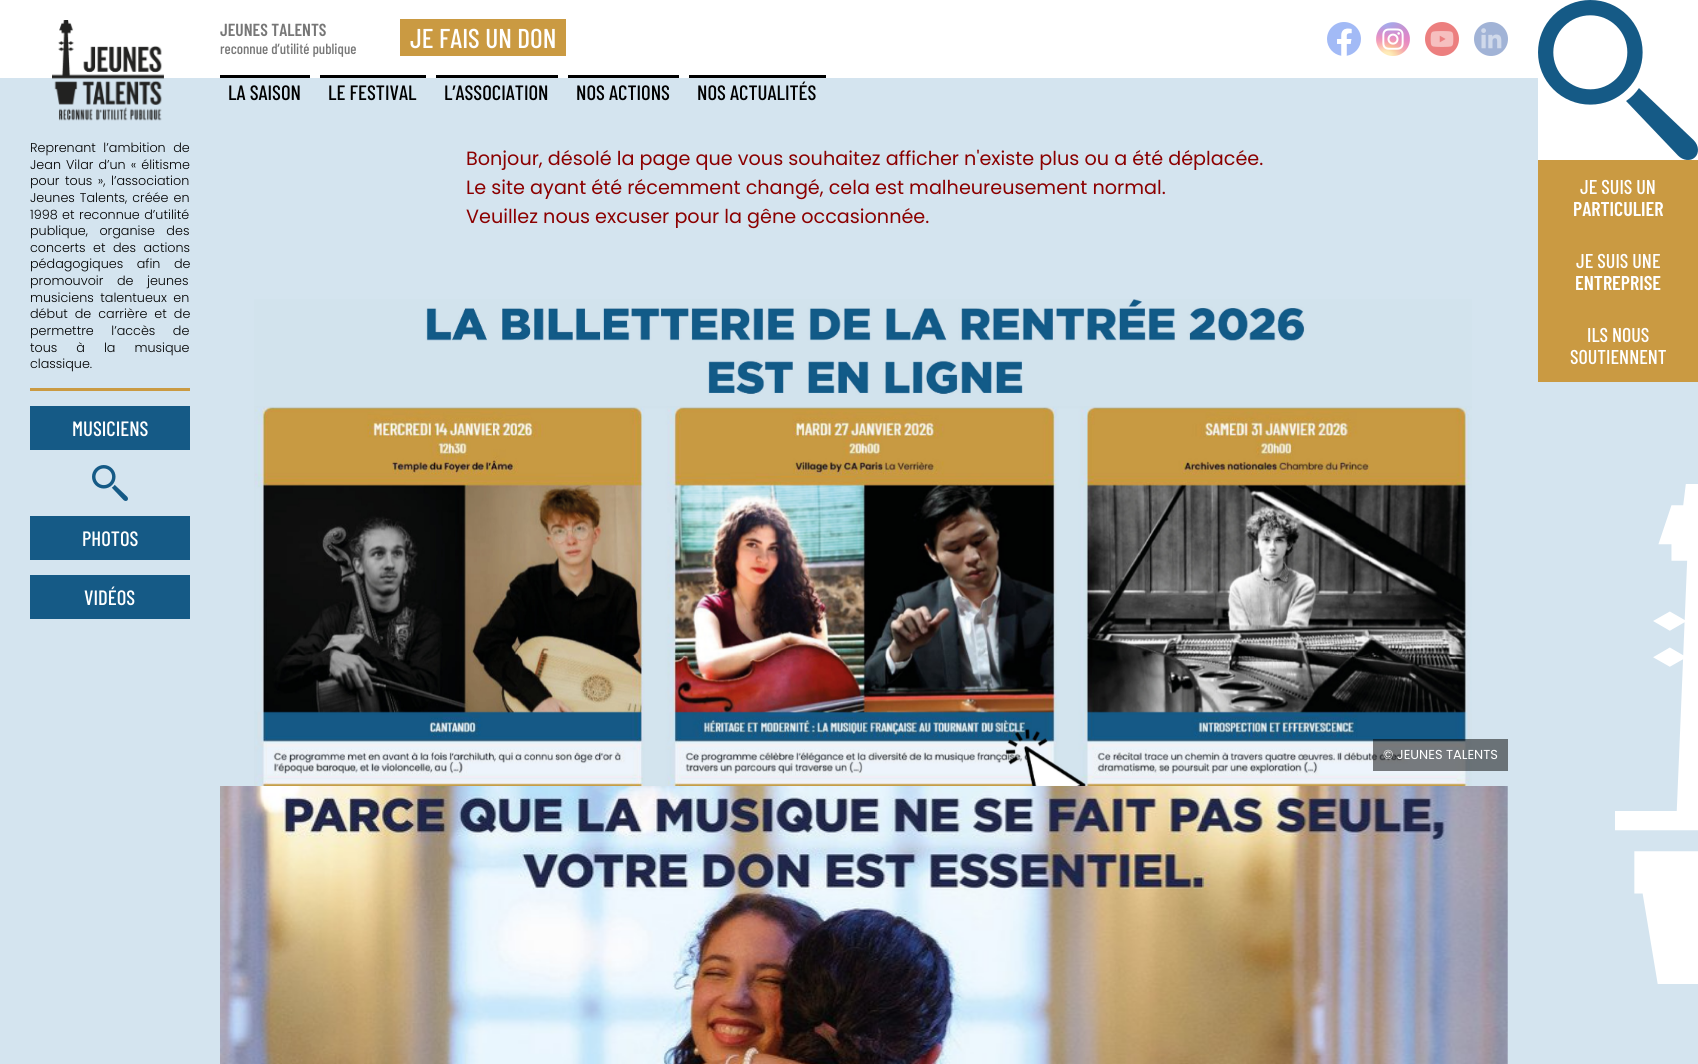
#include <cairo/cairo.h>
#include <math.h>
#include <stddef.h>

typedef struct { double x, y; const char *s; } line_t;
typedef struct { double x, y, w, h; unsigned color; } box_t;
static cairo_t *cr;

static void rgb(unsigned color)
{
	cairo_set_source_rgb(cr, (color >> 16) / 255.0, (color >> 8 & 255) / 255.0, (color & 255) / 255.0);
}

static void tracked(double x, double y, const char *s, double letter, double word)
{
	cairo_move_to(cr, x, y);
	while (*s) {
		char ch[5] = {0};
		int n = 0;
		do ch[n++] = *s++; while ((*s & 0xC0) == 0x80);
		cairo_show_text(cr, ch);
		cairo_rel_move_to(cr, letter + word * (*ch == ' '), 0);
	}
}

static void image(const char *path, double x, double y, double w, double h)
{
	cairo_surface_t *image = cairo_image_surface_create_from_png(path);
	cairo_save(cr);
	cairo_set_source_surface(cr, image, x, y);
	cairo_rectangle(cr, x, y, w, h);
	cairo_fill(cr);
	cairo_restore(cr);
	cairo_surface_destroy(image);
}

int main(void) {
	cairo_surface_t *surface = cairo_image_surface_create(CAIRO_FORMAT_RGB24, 1698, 1064);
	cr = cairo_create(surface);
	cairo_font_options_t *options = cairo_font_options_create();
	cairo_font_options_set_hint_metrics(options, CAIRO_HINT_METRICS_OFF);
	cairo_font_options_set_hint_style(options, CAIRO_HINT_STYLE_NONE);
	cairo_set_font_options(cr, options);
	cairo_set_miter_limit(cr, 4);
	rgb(0xd4e4ef);
	cairo_paint(cr);
	image("img/1.png", 1615, 484, 83, 500);
	rgb(0xffffff);
	cairo_rectangle(cr, 0, 0, 1538, 78);
	cairo_fill(cr);
	image("img/2.png", 52, 20, 112, 101);
	rgb(0xca9a42);
	cairo_rectangle(cr, 400, 19, 166, 37);
	cairo_fill(cr);
	image("img/3.png", 1327, 22, 34, 34);
	image("img/4.png", 1376, 22, 34, 34);
	image("img/5.png", 1425, 22, 34, 34);
	image("img/6.png", 1474, 22, 34, 34);
	{
		static const box_t items[] = {
			{220, 75, 90, 3, 0x000000},
			{320, 75, 106, 3, 0x000000},
			{436, 75, 122, 3, 0x000000},
			{568, 75, 111, 3, 0x000000},
			{689, 75, 137, 3, 0x000000},
			{30, 388, 160, 3, 0xca9a42},
			{30, 406, 160, 44, 0x155a86},
		};
		for (size_t i = 0; i < sizeof items / sizeof *items; i++) {
			rgb(items[i].color);
			cairo_rectangle(cr, items[i].x, items[i].y, items[i].w, items[i].h);
			cairo_fill(cr);
		}
	}
	image("img/7.png", 92, 465, 36, 36);
	cairo_rectangle(cr, 30, 516, 160, 44);
	cairo_fill(cr);
	cairo_rectangle(cr, 30, 575, 160, 44);
	cairo_fill(cr);
	image("img/8.png", 254, 299, 1218, 487);
	cairo_set_source_rgba(cr, 0, 0, 0, 0.5);
	cairo_rectangle(cr, 1373, 739, 135, 32);
	cairo_fill(cr);
	image("img/9.png", 220, 786, 1288, 278);
	rgb(0xffffff);
	cairo_rectangle(cr, 1538, 0, 160, 160);
	cairo_fill(cr);
	image("img/10.png", 1538, 0, 160, 160);
	rgb(0xca9a42);
	cairo_rectangle(cr, 1538, 160, 160, 222);
	cairo_fill(cr);
	cairo_select_font_face(cr, "Barlow Condensed SemiBold", CAIRO_FONT_SLANT_NORMAL, CAIRO_FONT_WEIGHT_NORMAL);
	cairo_set_font_size(cr, 17.5);
	rgb(0x777777);
	cairo_move_to(cr, 220, 36);
	cairo_show_text(cr, "JEUNES TALENTS");
	cairo_select_font_face(cr, "Barlow Condensed Medium", CAIRO_FONT_SLANT_NORMAL, CAIRO_FONT_WEIGHT_NORMAL);
	cairo_set_font_size(cr, 14.75);
	cairo_move_to(cr, 220, 54);
	cairo_show_text(cr, "reconnue d’utilité publique");
	cairo_set_font_size(cr, 27.25);
	rgb(0xffffff);
	cairo_move_to(cr, 410, 48);
	cairo_show_text(cr, "JE FAIS UN DON");
	cairo_set_font_size(cr, 20.75);
	rgb(0x000000);
	{
		static const line_t items[] = {
			{228, 100, "LA SAISON"},
			{328, 100, "LE FESTIVAL"},
			{444, 100, "L’ASSOCIATION"},
			{576, 100, "NOS ACTIONS"},
			{697, 100, "NOS ACTUALITÉS"},
		};
		for (size_t i = 0; i < sizeof items / sizeof *items; i++) {
			cairo_move_to(cr, items[i].x, items[i].y);
			cairo_show_text(cr, items[i].s);
		}
	}
	cairo_select_font_face(cr, "Poppins Light", CAIRO_FONT_SLANT_NORMAL, CAIRO_FONT_WEIGHT_NORMAL);
	cairo_set_font_size(cr, 12.75);
	tracked(30, 152, "Reprenant l’ambition de", 0, 4);
	tracked(30, 169, "Jean Vilar d’un « élitisme", 0, 1.5);
	tracked(30, 185, "pour tous », l’association", 0, 2);
	tracked(30, 202, "Jeunes Talents, créée en", 0, 1.5);
	tracked(30, 219, "1998 et reconnue d’utilité", 0, 1);
	tracked(30, 235, "publique, organise des", 0, 8);
	tracked(30, 252, "concerts et des actions", 0, 4);
	tracked(30, 268, "pédagogiques afin de", 0, 10);
	tracked(30, 285, "promouvoir de jeunes", 0, 10);
	tracked(30, 302, "musiciens talentueux en", 0, 3);
	tracked(30, 318, "début de carrière et de", 0, 3.5);
	tracked(30, 335, "permettre l’accès de", 0, 14);
	tracked(30, 352, "tous à la musique", 0, 15.5);
	cairo_move_to(cr, 30, 368);
	cairo_show_text(cr, "classique.");
	cairo_select_font_face(cr, "Barlow Condensed Medium", CAIRO_FONT_SLANT_NORMAL, CAIRO_FONT_WEIGHT_NORMAL);
	cairo_set_font_size(cr, 20.75);
	rgb(0xffffff);
	{
		static const line_t items[] = {
			{72, 436, "MUSICIENS"},
			{82, 546, "PHOTOS"},
			{84, 605, "VIDÉOS"},
		};
		for (size_t i = 0; i < sizeof items / sizeof *items; i++) {
			cairo_move_to(cr, items[i].x, items[i].y);
			cairo_show_text(cr, items[i].s);
		}
	}
	cairo_select_font_face(cr, "Poppins", CAIRO_FONT_SLANT_NORMAL, CAIRO_FONT_WEIGHT_NORMAL);
	cairo_set_font_size(cr, 19.2);
	rgb(0x8b0000);
	{
		static const line_t items[] = {
			{466, 165, "Bonjour, désolé la page que vous souhaitez afficher n'existe plus ou a été déplacée."},
			{466, 194, "Le site ayant été récemment changé, cela est malheureusement normal."},
			{466, 223, "Veuillez nous excuser pour la gêne occasionnée."},
		};
		for (size_t i = 0; i < sizeof items / sizeof *items; i++) {
			cairo_move_to(cr, items[i].x, items[i].y);
			cairo_show_text(cr, items[i].s);
		}
	}
	cairo_set_font_size(cr, 13);
	rgb(0xffffff);
	cairo_move_to(cr, 1383, 759);
	cairo_show_text(cr, "© JEUNES TALENTS");
	cairo_select_font_face(cr, "Barlow Condensed Medium", CAIRO_FONT_SLANT_NORMAL, CAIRO_FONT_WEIGHT_NORMAL);
	cairo_set_font_size(cr, 20);
	cairo_move_to(cr, 1580, 194);
	cairo_show_text(cr, "JE SUIS UN");
	cairo_select_font_face(cr, "Barlow Condensed SemiBold", CAIRO_FONT_SLANT_NORMAL, CAIRO_FONT_WEIGHT_NORMAL);
	cairo_move_to(cr, 1573, 216);
	cairo_show_text(cr, "PARTICULIER");
	cairo_select_font_face(cr, "Barlow Condensed Medium", CAIRO_FONT_SLANT_NORMAL, CAIRO_FONT_WEIGHT_NORMAL);
	cairo_move_to(cr, 1576, 268);
	cairo_show_text(cr, "JE SUIS UNE");
	cairo_select_font_face(cr, "Barlow Condensed SemiBold", CAIRO_FONT_SLANT_NORMAL, CAIRO_FONT_WEIGHT_NORMAL);
	cairo_move_to(cr, 1575, 290);
	cairo_show_text(cr, "ENTREPRISE");
	cairo_select_font_face(cr, "Barlow Condensed Medium", CAIRO_FONT_SLANT_NORMAL, CAIRO_FONT_WEIGHT_NORMAL);
	cairo_move_to(cr, 1587, 342);
	cairo_show_text(cr, "ILS NOUS");
	cairo_move_to(cr, 1570, 364);
	cairo_show_text(cr, "SOUTIENNENT");
	cairo_surface_write_to_png(surface, "page.png");
	cairo_font_options_destroy(options);
	cairo_destroy(cr);
	cairo_surface_destroy(surface);
	return 0;
}
